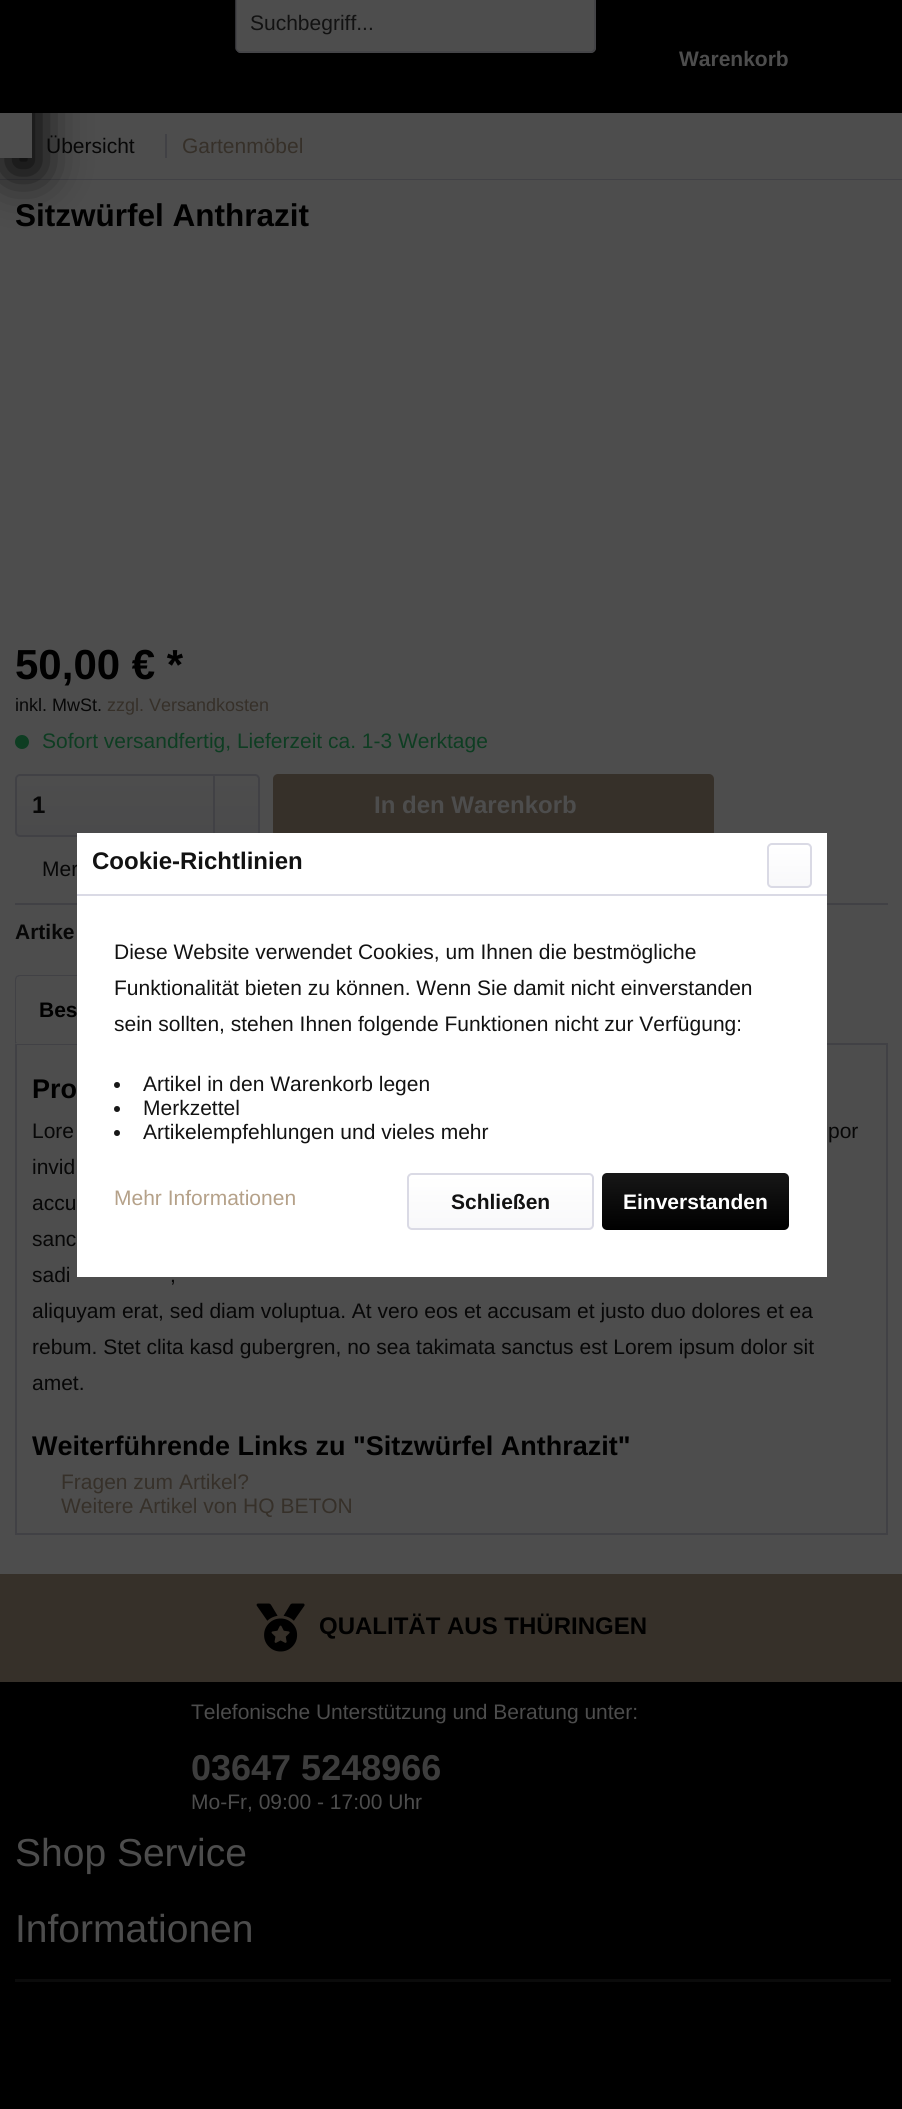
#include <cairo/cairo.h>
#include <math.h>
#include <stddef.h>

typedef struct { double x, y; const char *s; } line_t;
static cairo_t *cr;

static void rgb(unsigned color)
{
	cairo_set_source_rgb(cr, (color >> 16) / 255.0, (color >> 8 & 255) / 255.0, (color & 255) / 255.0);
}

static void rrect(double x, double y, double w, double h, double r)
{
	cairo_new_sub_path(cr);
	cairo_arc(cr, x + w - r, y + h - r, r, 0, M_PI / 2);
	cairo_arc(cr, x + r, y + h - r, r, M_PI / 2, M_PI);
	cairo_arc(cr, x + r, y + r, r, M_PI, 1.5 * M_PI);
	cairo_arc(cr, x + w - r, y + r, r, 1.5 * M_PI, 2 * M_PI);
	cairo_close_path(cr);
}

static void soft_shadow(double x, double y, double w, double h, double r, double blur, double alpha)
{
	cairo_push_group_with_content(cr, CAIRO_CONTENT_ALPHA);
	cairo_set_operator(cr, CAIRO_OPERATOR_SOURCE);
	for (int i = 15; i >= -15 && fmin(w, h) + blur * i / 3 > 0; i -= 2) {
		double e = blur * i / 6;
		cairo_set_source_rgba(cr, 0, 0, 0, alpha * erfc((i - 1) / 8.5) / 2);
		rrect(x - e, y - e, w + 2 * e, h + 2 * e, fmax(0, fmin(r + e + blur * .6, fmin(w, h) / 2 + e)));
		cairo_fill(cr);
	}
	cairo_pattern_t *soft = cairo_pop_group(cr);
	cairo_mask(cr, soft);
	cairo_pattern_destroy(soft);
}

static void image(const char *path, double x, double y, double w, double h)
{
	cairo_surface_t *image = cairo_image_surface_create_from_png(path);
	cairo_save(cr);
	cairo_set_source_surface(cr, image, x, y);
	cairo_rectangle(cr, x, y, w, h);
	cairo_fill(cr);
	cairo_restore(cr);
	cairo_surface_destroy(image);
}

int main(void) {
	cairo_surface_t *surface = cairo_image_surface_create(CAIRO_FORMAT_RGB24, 902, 2109);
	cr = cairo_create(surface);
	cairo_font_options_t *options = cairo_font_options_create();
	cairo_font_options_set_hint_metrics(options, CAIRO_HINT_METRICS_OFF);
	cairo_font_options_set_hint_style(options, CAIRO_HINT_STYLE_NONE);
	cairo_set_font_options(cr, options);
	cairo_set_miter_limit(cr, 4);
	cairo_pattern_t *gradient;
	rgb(0x4d4d4d);
	cairo_paint(cr);
	rgb(0x000000);
	cairo_rectangle(cr, 0, 0, 902, 113);
	cairo_fill(cr);
	rgb(0x414145);
	cairo_rectangle(cr, 0, 179, 902, 1);
	cairo_fill(cr);
	cairo_save(cr);
	cairo_set_fill_rule(cr, CAIRO_FILL_RULE_EVEN_ODD);
	cairo_new_path(cr);
	cairo_move_to(cr, 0, 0);
	cairo_line_to(cr, 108, 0);
	cairo_line_to(cr, 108, 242);
	cairo_line_to(cr, 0, 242);
	cairo_close_path(cr);
	cairo_move_to(cr, 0, -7);
	cairo_line_to(cr, 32, -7);
	cairo_line_to(cr, 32, 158);
	cairo_line_to(cr, 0, 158);
	cairo_close_path(cr);
	cairo_clip(cr);
	rgb(0x000000);
	soft_shadow(8, 8, 31, 165, 0, 22.5, 1);
	cairo_restore(cr);
	rgb(0x4d4d4d);
	rrect(236, -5, 360, 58, 5);
	cairo_fill(cr);
	cairo_new_path(cr);
	cairo_move_to(cr, 593.5, -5.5);
	cairo_curve_to(cr, 594.5, -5, 595, -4, 595, -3);
	cairo_line_to(cr, 595, 48);
	cairo_curve_to(cr, 595, 49, 594.5, 50, 593.5, 50.5);
	cairo_curve_to(cr, 593, 51.5, 592, 52, 591, 52);
	cairo_line_to(cr, 240, 52);
	cairo_curve_to(cr, 239, 52, 238, 51.5, 237.5, 50.5);
	cairo_curve_to(cr, 236.5, 50, 236, 49, 236, 48);
	cairo_line_to(cr, 236, -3);
	cairo_curve_to(cr, 236, -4, 236.5, -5, 237.5, -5.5);
	rgb(0x414145);
	cairo_set_line_width(cr, 1.5);
	cairo_stroke(cr);
	cairo_rectangle(cr, 165, 134, 2, 24);
	cairo_fill(cr);
	rgb(0x0e3d22);
	cairo_arc(cr, 22, 742, 7, 0, 2 * M_PI);
	cairo_fill(cr);
	gradient = cairo_pattern_create_linear(137, 776, 137, 836);
	cairo_pattern_add_color_stop_rgba(gradient, 0, 0.302, 0.302, 0.302, 1);
	cairo_pattern_add_color_stop_rgba(gradient, 1, 0.29, 0.29, 0.294, 1);
	cairo_set_source(cr, gradient);
	cairo_pattern_destroy(gradient);
	rrect(17, 776, 241, 60, 3);
	cairo_fill(cr);
	rrect(16, 775, 243, 61, 4);
	rgb(0x414145);
	cairo_set_line_width(cr, 2);
	cairo_stroke(cr);
	cairo_rectangle(cr, 213, 776, 2, 60);
	cairo_fill(cr);
	rgb(0x363029);
	rrect(273, 774, 441, 63, 5);
	cairo_fill(cr);
	rgb(0x414145);
	cairo_rectangle(cr, 15, 903, 873, 2);
	cairo_fill(cr);
	cairo_rectangle(cr, 16, 1044, 871, 490);
	cairo_stroke(cr);
	rgb(0x4d4d4d);
	cairo_new_path(cr);
	cairo_move_to(cr, 20, 975);
	cairo_line_to(cr, 198, 975);
	cairo_curve_to(cr, 201, 975, 203, 977, 203, 980);
	cairo_line_to(cr, 203, 1044);
	cairo_line_to(cr, 15, 1044);
	cairo_line_to(cr, 15, 980);
	cairo_curve_to(cr, 15, 977, 17, 975, 20, 975);
	cairo_close_path(cr);
	cairo_fill(cr);
	rgb(0x414145);
	cairo_new_path(cr);
	cairo_move_to(cr, 20, 975);
	cairo_curve_to(cr, 18, 975, 17, 976, 16, 976);
	cairo_line_to(cr, 17, 977);
	cairo_line_to(cr, 20, 976);
	cairo_line_to(cr, 199, 976);
	cairo_line_to(cr, 200, 977);
	cairo_line_to(cr, 201, 977);
	cairo_curve_to(cr, 200, 976, 199, 975, 198, 975);
	cairo_close_path(cr);
	cairo_fill(cr);
	cairo_new_path(cr);
	cairo_move_to(cr, 15, 1044);
	cairo_line_to(cr, 17, 1042);
	cairo_line_to(cr, 16, 1042);
	cairo_line_to(cr, 16, 980);
	cairo_line_to(cr, 17, 977);
	cairo_line_to(cr, 16, 976);
	cairo_curve_to(cr, 16, 977, 15, 978, 15, 980);
	cairo_close_path(cr);
	cairo_fill(cr);
	rgb(0x363029);
	cairo_rectangle(cr, 0, 1574, 902, 108);
	cairo_fill(cr);
	image("img/1.png", 256, 1603, 49, 49);
	rgb(0x000000);
	cairo_rectangle(cr, 0, 1682, 902, 427);
	cairo_fill(cr);
	rgb(0x0b0b0b);
	cairo_rectangle(cr, 15, 1979, 876, 3);
	cairo_fill(cr);
	cairo_select_font_face(cr, "Liberation Sans", CAIRO_FONT_SLANT_NORMAL, CAIRO_FONT_WEIGHT_NORMAL);
	cairo_set_font_size(cr, 21);
	rgb(0x121212);
	cairo_move_to(cr, 250, 30);
	cairo_show_text(cr, "Suchbegriff...");
	cairo_select_font_face(cr, "Liberation Sans", CAIRO_FONT_SLANT_NORMAL, CAIRO_FONT_WEIGHT_BOLD);
	rgb(0x4d4d4d);
	cairo_move_to(cr, 679, 66);
	cairo_show_text(cr, "Warenkorb");
	cairo_select_font_face(cr, "Liberation Sans", CAIRO_FONT_SLANT_NORMAL, CAIRO_FONT_WEIGHT_NORMAL);
	rgb(0x070707);
	cairo_move_to(cr, 46, 153);
	cairo_show_text(cr, "Übersicht");
	rgb(0x363029);
	cairo_move_to(cr, 182, 153);
	cairo_show_text(cr, "Gartenmöbel");
	cairo_select_font_face(cr, "Liberation Sans", CAIRO_FONT_SLANT_NORMAL, CAIRO_FONT_WEIGHT_BOLD);
	cairo_set_font_size(cr, 31.5);
	rgb(0x000000);
	cairo_move_to(cr, 15, 226);
	cairo_show_text(cr, "Sitzwürfel Anthrazit");
	cairo_set_font_size(cr, 42);
	cairo_move_to(cr, 15, 679);
	cairo_show_text(cr, "50,00 € *");
	cairo_select_font_face(cr, "Liberation Sans", CAIRO_FONT_SLANT_NORMAL, CAIRO_FONT_WEIGHT_NORMAL);
	cairo_set_font_size(cr, 18);
	rgb(0x070707);
	cairo_move_to(cr, 15, 711);
	cairo_show_text(cr, "inkl. MwSt.");
	rgb(0x363029);
	cairo_move_to(cr, 107, 711);
	cairo_show_text(cr, "zzgl. Versandkosten");
	cairo_set_font_size(cr, 21);
	rgb(0x0e3d22);
	cairo_move_to(cr, 42, 748);
	cairo_show_text(cr, "Sofort versandfertig, Lieferzeit ca. 1-3 Werktage");
	cairo_select_font_face(cr, "Liberation Sans", CAIRO_FONT_SLANT_NORMAL, CAIRO_FONT_WEIGHT_BOLD);
	cairo_set_font_size(cr, 24);
	rgb(0x070707);
	cairo_move_to(cr, 32, 813);
	cairo_show_text(cr, "1");
	rgb(0x4d4d4d);
	cairo_move_to(cr, 374, 813);
	cairo_show_text(cr, "In den Warenkorb");
	cairo_select_font_face(cr, "Liberation Sans", CAIRO_FONT_SLANT_NORMAL, CAIRO_FONT_WEIGHT_NORMAL);
	cairo_set_font_size(cr, 21);
	rgb(0x070707);
	cairo_move_to(cr, 42, 876);
	cairo_show_text(cr, "Mer");
	cairo_select_font_face(cr, "Liberation Sans", CAIRO_FONT_SLANT_NORMAL, CAIRO_FONT_WEIGHT_BOLD);
	cairo_move_to(cr, 15, 939);
	cairo_show_text(cr, "Artike");
	rgb(0x000000);
	cairo_move_to(cr, 39, 1017);
	cairo_show_text(cr, "Bes");
	cairo_set_font_size(cr, 27);
	cairo_move_to(cr, 32, 1098);
	cairo_show_text(cr, "Pro");
	cairo_select_font_face(cr, "Liberation Sans", CAIRO_FONT_SLANT_NORMAL, CAIRO_FONT_WEIGHT_NORMAL);
	cairo_set_font_size(cr, 21);
	rgb(0x070707);
	{
		static const line_t items[] = {
			{32, 1138, "Lore"},
			{828, 1138, "por"},
			{32, 1174, "invid"},
			{32, 1210, "accu"},
			{32, 1246, "sanc"},
			{32, 1282, "sadi"},
			{170, 1282, ","},
			{32, 1318, "aliquyam erat, sed diam voluptua. At vero eos et accusam et justo duo dolores et ea"},
			{32, 1354, "rebum. Stet clita kasd gubergren, no sea takimata sanctus est Lorem ipsum dolor sit"},
			{32, 1390, "amet."},
		};
		for (size_t i = 0; i < sizeof items / sizeof *items; i++) {
			cairo_move_to(cr, items[i].x, items[i].y);
			cairo_show_text(cr, items[i].s);
		}
	}
	cairo_select_font_face(cr, "Liberation Sans", CAIRO_FONT_SLANT_NORMAL, CAIRO_FONT_WEIGHT_BOLD);
	cairo_set_font_size(cr, 27);
	rgb(0x000000);
	cairo_move_to(cr, 32, 1455);
	cairo_show_text(cr, "Weiterführende Links zu \"Sitzwürfel Anthrazit\"");
	cairo_select_font_face(cr, "Liberation Sans", CAIRO_FONT_SLANT_NORMAL, CAIRO_FONT_WEIGHT_NORMAL);
	cairo_set_font_size(cr, 21);
	rgb(0x363029);
	cairo_move_to(cr, 61, 1489);
	cairo_show_text(cr, "Fragen zum Artikel?");
	cairo_move_to(cr, 61, 1513);
	cairo_show_text(cr, "Weitere Artikel von HQ BETON");
	cairo_select_font_face(cr, "Liberation Sans", CAIRO_FONT_SLANT_NORMAL, CAIRO_FONT_WEIGHT_BOLD);
	cairo_set_font_size(cr, 24);
	rgb(0x000000);
	cairo_move_to(cr, 319, 1634);
	cairo_show_text(cr, "QUALITÄT AUS THÜRINGEN");
	cairo_select_font_face(cr, "Liberation Sans", CAIRO_FONT_SLANT_NORMAL, CAIRO_FONT_WEIGHT_NORMAL);
	cairo_set_font_size(cr, 21);
	rgb(0x4d4d4d);
	cairo_move_to(cr, 191, 1719);
	cairo_show_text(cr, "Telefonische Unterstützung und Beratung unter:");
	cairo_select_font_face(cr, "Liberation Sans", CAIRO_FONT_SLANT_NORMAL, CAIRO_FONT_WEIGHT_BOLD);
	cairo_set_font_size(cr, 36);
	rgb(0x3d3d3d);
	cairo_move_to(cr, 191, 1780);
	cairo_show_text(cr, "03647 5248966");
	cairo_select_font_face(cr, "Liberation Sans", CAIRO_FONT_SLANT_NORMAL, CAIRO_FONT_WEIGHT_NORMAL);
	cairo_set_font_size(cr, 21);
	rgb(0x4d4d4d);
	cairo_move_to(cr, 191, 1809);
	cairo_show_text(cr, "Mo-Fr, 09:00 - 17:00 Uhr");
	cairo_set_font_size(cr, 39);
	cairo_move_to(cr, 15, 1866);
	cairo_show_text(cr, "Shop Service");
	cairo_move_to(cr, 15, 1942);
	cairo_show_text(cr, "Informationen");
	rgb(0xffffff);
	cairo_rectangle(cr, 77, 833, 750, 444);
	cairo_fill(cr);
	rgb(0xdadae5);
	cairo_rectangle(cr, 77, 894, 750, 2);
	cairo_fill(cr);
	cairo_select_font_face(cr, "Liberation Sans", CAIRO_FONT_SLANT_NORMAL, CAIRO_FONT_WEIGHT_BOLD);
	cairo_set_font_size(cr, 24);
	rgb(0x121212);
	cairo_move_to(cr, 92, 869);
	cairo_show_text(cr, "Cookie-Richtlinien");
	gradient = cairo_pattern_create_linear(789, 845, 789, 887);
	cairo_pattern_add_color_stop_rgba(gradient, 0, 1, 1, 1, 1);
	cairo_pattern_add_color_stop_rgba(gradient, 1, 0.973, 0.973, 0.98, 1);
	cairo_set_source(cr, gradient);
	cairo_pattern_destroy(gradient);
	rrect(768, 845, 42, 42, 3);
	cairo_fill(cr);
	rrect(768, 844, 43, 43, 4);
	rgb(0xdadae5);
	cairo_stroke(cr);
	cairo_select_font_face(cr, "Liberation Sans", CAIRO_FONT_SLANT_NORMAL, CAIRO_FONT_WEIGHT_NORMAL);
	cairo_set_font_size(cr, 21);
	rgb(0x121212);
	{
		static const line_t items[] = {
			{114, 959, "Diese Website verwendet Cookies, um Ihnen die bestmögliche"},
			{114, 995, "Funktionalität bieten zu können. Wenn Sie damit nicht einverstanden"},
			{114, 1031, "sein sollten, stehen Ihnen folgende Funktionen nicht zur Verfügung:"},
		};
		for (size_t i = 0; i < sizeof items / sizeof *items; i++) {
			cairo_move_to(cr, items[i].x, items[i].y);
			cairo_show_text(cr, items[i].s);
		}
	}
	rgb(0x171717);
	cairo_new_path(cr);
	cairo_arc(cr, 117, 1085, 3, 0, 2 * M_PI);
	cairo_fill(cr);
	rgb(0x121212);
	cairo_move_to(cr, 143, 1091);
	cairo_show_text(cr, "Artikel in den Warenkorb legen");
	rgb(0x171717);
	cairo_new_path(cr);
	cairo_arc(cr, 117, 1109, 3, 0, 2 * M_PI);
	cairo_fill(cr);
	rgb(0x121212);
	cairo_move_to(cr, 143, 1115);
	cairo_show_text(cr, "Merkzettel");
	rgb(0x171717);
	cairo_new_path(cr);
	cairo_arc(cr, 117, 1133, 3, 0, 2 * M_PI);
	cairo_fill(cr);
	rgb(0x121212);
	cairo_move_to(cr, 143, 1139);
	cairo_show_text(cr, "Artikelempfehlungen und vieles mehr");
	rgb(0xb5a189);
	cairo_move_to(cr, 114, 1205);
	cairo_show_text(cr, "Mehr Informationen");
	gradient = cairo_pattern_create_linear(500, 1175, 500, 1229);
	cairo_pattern_add_color_stop_rgba(gradient, 0, 1, 1, 1, 1);
	cairo_pattern_add_color_stop_rgba(gradient, 1, 0.973, 0.973, 0.98, 1);
	cairo_set_source(cr, gradient);
	cairo_pattern_destroy(gradient);
	rrect(408, 1175, 185, 54, 3);
	cairo_fill(cr);
	rrect(408, 1174, 185, 55, 4);
	rgb(0xdadae5);
	cairo_stroke(cr);
	cairo_select_font_face(cr, "Liberation Sans", CAIRO_FONT_SLANT_NORMAL, CAIRO_FONT_WEIGHT_BOLD);
	rgb(0x121212);
	cairo_move_to(cr, 451, 1209);
	cairo_show_text(cr, "Schließen");
	gradient = cairo_pattern_create_linear(695, 1173, 695, 1230);
	cairo_pattern_add_color_stop_rgba(gradient, 0, 0.09, 0.09, 0.09, 1);
	cairo_pattern_add_color_stop_rgba(gradient, 1, 0, 0, 0, 1);
	cairo_set_source(cr, gradient);
	cairo_pattern_destroy(gradient);
	rrect(602, 1173, 187, 57, 5);
	cairo_fill(cr);
	rgb(0xffffff);
	cairo_move_to(cr, 623, 1209);
	cairo_show_text(cr, "Einverstanden");
	cairo_surface_write_to_png(surface, "page.png");
	cairo_font_options_destroy(options);
	cairo_destroy(cr);
	cairo_surface_destroy(surface);
	return 0;
}
